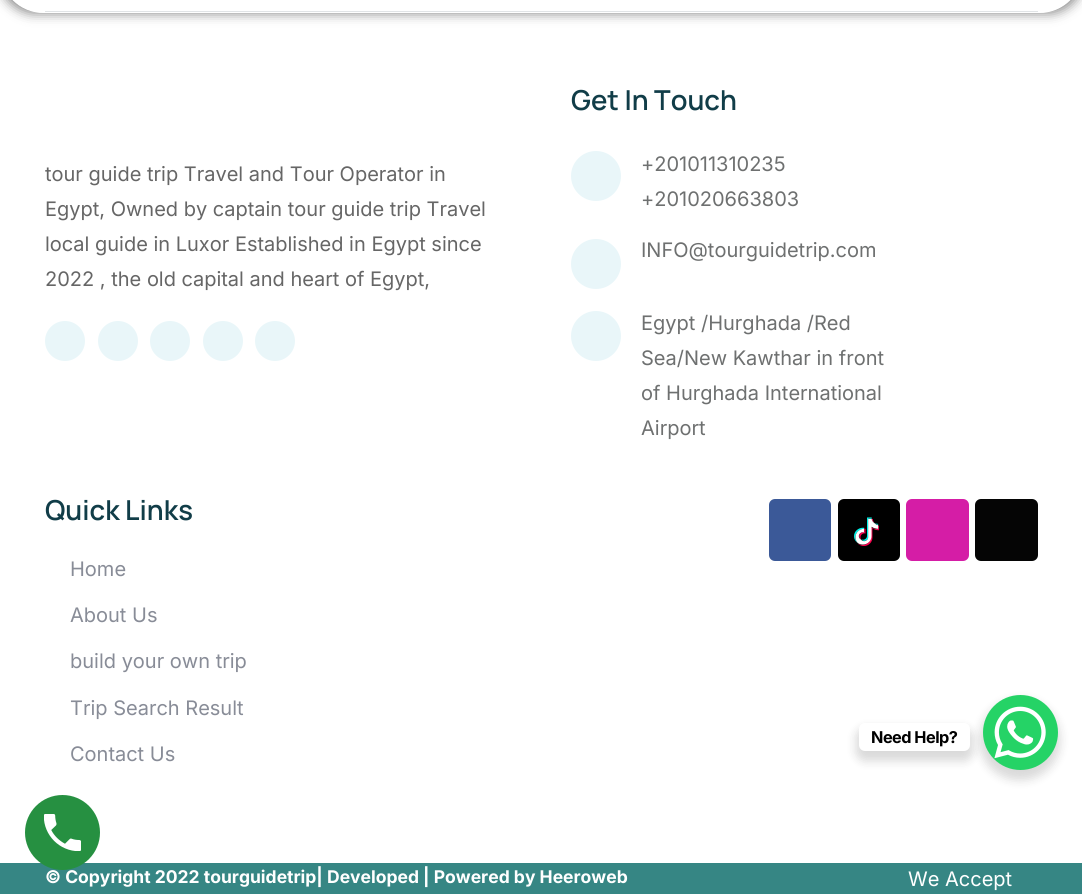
#include <cairo/cairo.h>
#include <math.h>
#include <stddef.h>

typedef struct { double x, y; const char *s; } line_t;
static cairo_t *cr;

static void rgb(unsigned color)
{
	cairo_set_source_rgb(cr, (color >> 16) / 255.0, (color >> 8 & 255) / 255.0, (color & 255) / 255.0);
}

static void tracked(double x, double y, const char *s, double letter, double word)
{
	cairo_move_to(cr, x, y);
	while (*s) {
		char ch[5] = {0};
		int n = 0;
		do ch[n++] = *s++; while ((*s & 0xC0) == 0x80);
		cairo_show_text(cr, ch);
		cairo_rel_move_to(cr, letter + word * (*ch == ' '), 0);
	}
}

static void rrect(double x, double y, double w, double h, double r)
{
	cairo_new_sub_path(cr);
	cairo_arc(cr, x + w - r, y + h - r, r, 0, M_PI / 2);
	cairo_arc(cr, x + r, y + h - r, r, M_PI / 2, M_PI);
	cairo_arc(cr, x + r, y + r, r, M_PI, 1.5 * M_PI);
	cairo_arc(cr, x + w - r, y + r, r, 1.5 * M_PI, 2 * M_PI);
	cairo_close_path(cr);
}

static void soft_shadow(double x, double y, double w, double h, double r, double blur, double alpha)
{
	cairo_push_group_with_content(cr, CAIRO_CONTENT_ALPHA);
	cairo_set_operator(cr, CAIRO_OPERATOR_SOURCE);
	for (int i = 15; i >= -15 && fmin(w, h) + blur * i / 3 > 0; i -= 2) {
		double e = blur * i / 6;
		cairo_set_source_rgba(cr, 0, 0, 0, alpha * erfc((i - 1) / 8.5) / 2);
		rrect(x - e, y - e, w + 2 * e, h + 2 * e, fmax(0, fmin(r + e + blur * .6, fmin(w, h) / 2 + e)));
		cairo_fill(cr);
	}
	cairo_pattern_t *soft = cairo_pop_group(cr);
	cairo_mask(cr, soft);
	cairo_pattern_destroy(soft);
}

static void image(const char *path, double x, double y, double w, double h)
{
	cairo_surface_t *image = cairo_image_surface_create_from_png(path);
	cairo_save(cr);
	cairo_set_source_surface(cr, image, x, y);
	cairo_rectangle(cr, x, y, w, h);
	cairo_fill(cr);
	cairo_restore(cr);
	cairo_surface_destroy(image);
}

int main(void) {
	cairo_surface_t *surface = cairo_image_surface_create(CAIRO_FORMAT_RGB24, 1082, 894);
	cr = cairo_create(surface);
	cairo_font_options_t *options = cairo_font_options_create();
	cairo_font_options_set_hint_metrics(options, CAIRO_HINT_METRICS_OFF);
	cairo_font_options_set_hint_style(options, CAIRO_HINT_STYLE_NONE);
	cairo_set_font_options(cr, options);
	cairo_set_miter_limit(cr, 4);
	rgb(0xffffff);
	cairo_paint(cr);
	cairo_save(cr);
	cairo_set_fill_rule(cr, CAIRO_FILL_RULE_EVEN_ODD);
	cairo_new_path(cr);
	cairo_move_to(cr, 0, 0);
	cairo_line_to(cr, 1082, 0);
	cairo_line_to(cr, 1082, 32);
	cairo_line_to(cr, 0, 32);
	cairo_close_path(cr);
	cairo_move_to(cr, 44, -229);
	cairo_line_to(cr, 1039, -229);
	cairo_curve_to(cr, 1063.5, -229, 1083, -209.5, 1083, -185);
	cairo_line_to(cr, 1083, -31);
	cairo_curve_to(cr, 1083, -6.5, 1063.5, 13, 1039, 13);
	cairo_line_to(cr, 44, 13);
	cairo_curve_to(cr, 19.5, 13, 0, -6.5, 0, -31);
	cairo_line_to(cr, 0, -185);
	cairo_curve_to(cr, 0, -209.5, 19.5, -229, 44, -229);
	cairo_close_path(cr);
	cairo_clip(cr);
	rgb(0x000000);
	soft_shadow(0, -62, 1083, 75, 44, 6, 0.5);
	cairo_restore(cr);
	rgb(0xe1e4e6);
	cairo_rectangle(cr, 45, 11, 993, 1);
	cairo_fill(cr);
	rgb(0xe9f6f9);
	cairo_arc(cr, 65, 341, 20, 0, 2 * M_PI);
	cairo_fill(cr);
	cairo_arc(cr, 118, 341, 20, 0, 2 * M_PI);
	cairo_fill(cr);
	cairo_arc(cr, 170, 341, 20, 0, 2 * M_PI);
	cairo_fill(cr);
	cairo_arc(cr, 223, 341, 20, 0, 2 * M_PI);
	cairo_fill(cr);
	cairo_arc(cr, 275, 341, 20, 0, 2 * M_PI);
	cairo_fill(cr);
	cairo_arc(cr, 596, 176, 25, 0, 2 * M_PI);
	cairo_fill(cr);
	cairo_arc(cr, 596, 264, 25, 0, 2 * M_PI);
	cairo_fill(cr);
	cairo_arc(cr, 596, 336, 25, 0, 2 * M_PI);
	cairo_fill(cr);
	rgb(0x3b5998);
	rrect(769, 499, 62, 62, 6);
	cairo_fill(cr);
	rgb(0x000000);
	rrect(838, 499, 62, 62, 6);
	cairo_fill(cr);
	image("img/1.png", 854, 517, 25, 29);
	rgb(0xd51da6);
	rrect(906, 499, 63, 62, 6);
	cairo_fill(cr);
	rgb(0x050505);
	rrect(975, 499, 63, 62, 6);
	cairo_fill(cr);
	rgb(0x368684);
	cairo_rectangle(cr, 0, 863, 1082, 31);
	cairo_fill(cr);
	rgb(0x000000);
	soft_shadow(980, 700, 80, 80, 40, 5, 0.15);
	rgb(0x25d366);
	cairo_arc(cr, 1020.5, 732.5, 37.5, 0, 2 * M_PI);
	cairo_fill(cr);
	rgb(0x000000);
	soft_shadow(856, 728, 117, 33, 9, 5, 0.15);
	rgb(0xffffff);
	rrect(859, 723, 111, 28, 6);
	cairo_fill(cr);
	image("img/2.png", 994, 706, 52, 53);
	cairo_select_font_face(cr, "Inter", CAIRO_FONT_SLANT_NORMAL, CAIRO_FONT_WEIGHT_NORMAL);
	cairo_set_font_size(cr, 20);
	rgb(0x666666);
	{
		static const line_t items[] = {
			{45, 181, "tour guide trip Travel and Tour Operator in"},
			{45, 216, "Egypt, Owned by captain tour guide trip Travel"},
			{45, 251, "local guide in Luxor Established in Egypt since"},
			{45, 286, "2022 , the old capital and heart of Egypt,"},
		};
		for (size_t i = 0; i < sizeof items / sizeof *items; i++) {
			cairo_move_to(cr, items[i].x, items[i].y);
			cairo_show_text(cr, items[i].s);
		}
	}
	cairo_select_font_face(cr, "Manrope SemiBold", CAIRO_FONT_SLANT_NORMAL, CAIRO_FONT_WEIGHT_NORMAL);
	cairo_set_font_size(cr, 27.5);
	rgb(0x113d48);
	cairo_move_to(cr, 571, 110);
	cairo_show_text(cr, "Get In Touch");
	cairo_select_font_face(cr, "Inter", CAIRO_FONT_SLANT_NORMAL, CAIRO_FONT_WEIGHT_NORMAL);
	cairo_set_font_size(cr, 20);
	rgb(0x6e7070);
	{
		static const line_t items[] = {
			{641, 171, "+201011310235"},
			{641, 206, "+201020663803"},
			{641, 257, "INFO@tourguidetrip.com"},
			{641, 330, "Egypt /Hurghada /Red"},
			{641, 365, "Sea/New Kawthar in front"},
			{641, 400, "of Hurghada International"},
			{641, 435, "Airport"},
		};
		for (size_t i = 0; i < sizeof items / sizeof *items; i++) {
			cairo_move_to(cr, items[i].x, items[i].y);
			cairo_show_text(cr, items[i].s);
		}
	}
	cairo_select_font_face(cr, "Manrope SemiBold", CAIRO_FONT_SLANT_NORMAL, CAIRO_FONT_WEIGHT_NORMAL);
	cairo_set_font_size(cr, 27.5);
	rgb(0x113d48);
	cairo_move_to(cr, 45, 520);
	cairo_show_text(cr, "Quick Links");
	cairo_select_font_face(cr, "Inter", CAIRO_FONT_SLANT_NORMAL, CAIRO_FONT_WEIGHT_NORMAL);
	cairo_set_font_size(cr, 20);
	rgb(0x888c97);
	{
		static const line_t items[] = {
			{70, 576, "Home"},
			{70, 622, "About Us"},
			{70, 668, "build your own trip"},
			{70, 715, "Trip Search Result"},
			{70, 761, "Contact Us"},
		};
		for (size_t i = 0; i < sizeof items / sizeof *items; i++) {
			cairo_move_to(cr, items[i].x, items[i].y);
			cairo_show_text(cr, items[i].s);
		}
	}
	cairo_select_font_face(cr, "Inter", CAIRO_FONT_SLANT_NORMAL, CAIRO_FONT_WEIGHT_BOLD);
	cairo_set_font_size(cr, 17.5);
	rgb(0xffffff);
	cairo_move_to(cr, 45, 883);
	cairo_show_text(cr, "© Copyright 2022 tourguidetrip| Developed | Powered by Heeroweb");
	cairo_select_font_face(cr, "Inter", CAIRO_FONT_SLANT_NORMAL, CAIRO_FONT_WEIGHT_NORMAL);
	cairo_set_font_size(cr, 20);
	cairo_move_to(cr, 908, 886);
	cairo_show_text(cr, "We Accept");
	cairo_select_font_face(cr, "Inter", CAIRO_FONT_SLANT_NORMAL, CAIRO_FONT_WEIGHT_BOLD);
	cairo_set_font_size(cr, 16.25);
	rgb(0x000000);
	tracked(871, 743, "Need Help?", -0.5, 0);
	rgb(0x269041);
	cairo_new_path(cr);
	cairo_arc(cr, 62.5, 832.5, 37.5, 0, 2 * M_PI);
	cairo_fill(cr);
	image("img/3.png", 44, 814, 37, 37);
	cairo_surface_write_to_png(surface, "page.png");
	cairo_font_options_destroy(options);
	cairo_destroy(cr);
	cairo_surface_destroy(surface);
	return 0;
}
